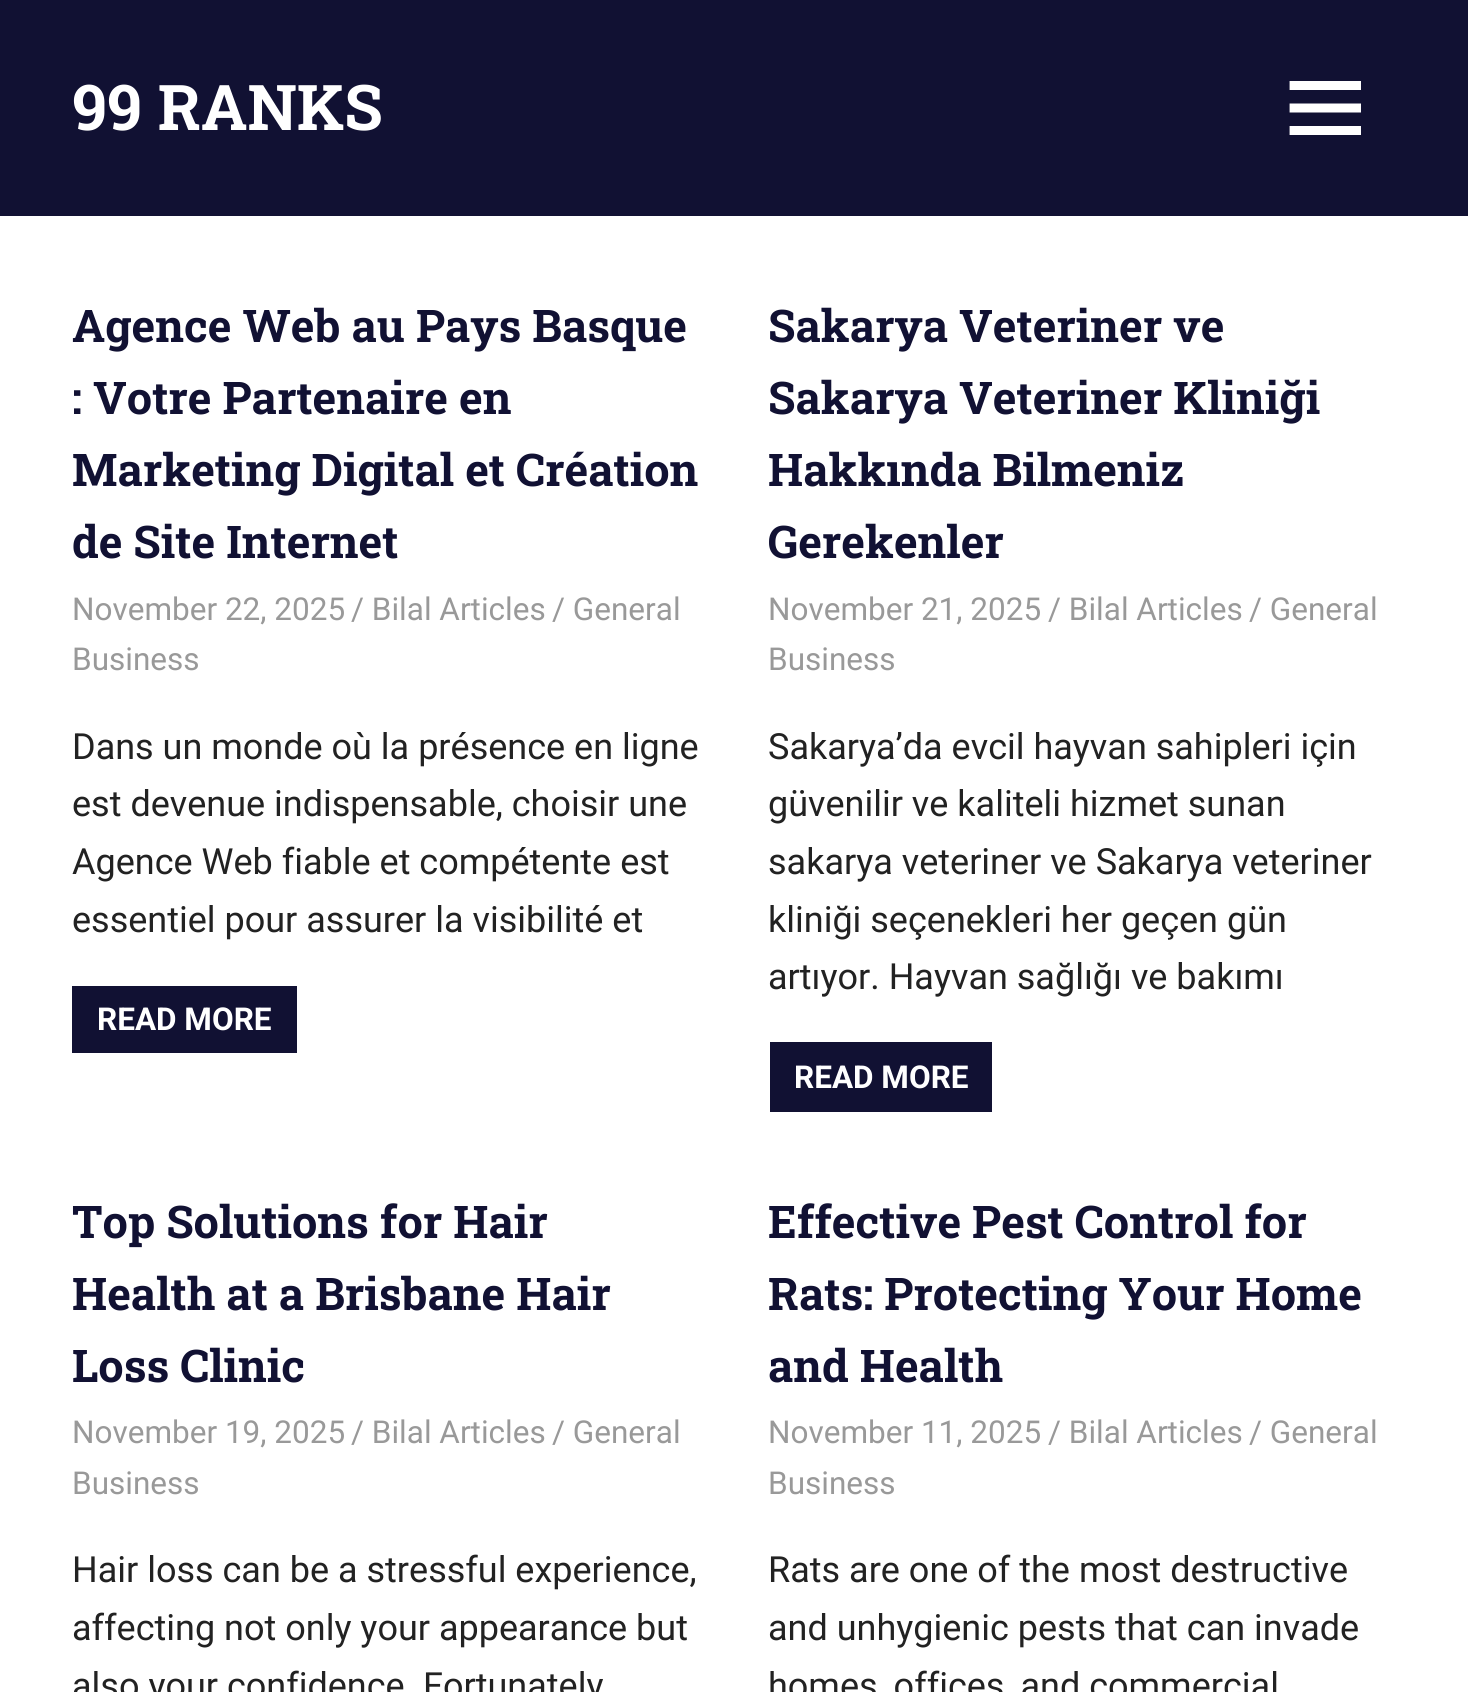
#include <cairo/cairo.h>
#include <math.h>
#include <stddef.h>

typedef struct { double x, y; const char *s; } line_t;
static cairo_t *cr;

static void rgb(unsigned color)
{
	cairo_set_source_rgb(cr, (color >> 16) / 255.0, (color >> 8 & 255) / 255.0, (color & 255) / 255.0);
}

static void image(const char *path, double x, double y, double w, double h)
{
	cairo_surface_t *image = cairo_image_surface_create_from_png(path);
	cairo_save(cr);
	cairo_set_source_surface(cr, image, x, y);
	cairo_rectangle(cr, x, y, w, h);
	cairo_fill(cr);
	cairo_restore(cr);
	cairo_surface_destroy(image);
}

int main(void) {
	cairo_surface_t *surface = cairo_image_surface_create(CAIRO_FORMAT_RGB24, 1468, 1692);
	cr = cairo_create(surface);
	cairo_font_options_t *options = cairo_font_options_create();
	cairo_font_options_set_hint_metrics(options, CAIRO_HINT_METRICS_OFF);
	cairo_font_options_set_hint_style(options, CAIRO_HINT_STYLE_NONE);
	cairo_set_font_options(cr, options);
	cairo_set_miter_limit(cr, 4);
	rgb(0xffffff);
	cairo_paint(cr);
	rgb(0x111133);
	cairo_rectangle(cr, 0, 0, 1468, 216);
	cairo_fill(cr);
	image("img/1.png", 1289, 81, 72, 54);
	cairo_rectangle(cr, 72, 986, 225, 67);
	cairo_fill(cr);
	cairo_rectangle(cr, 770, 1042, 222, 70);
	cairo_fill(cr);
	cairo_select_font_face(cr, "Roboto Slab", CAIRO_FONT_SLANT_NORMAL, CAIRO_FONT_WEIGHT_BOLD);
	cairo_set_font_size(cr, 63);
	rgb(0xffffff);
	cairo_move_to(cr, 72, 130);
	cairo_show_text(cr, "99 RANKS");
	cairo_set_font_size(cr, 45);
	rgb(0x111133);
	{
		static const line_t items[] = {
			{72, 342, "Agence Web au Pays Basque"},
			{72, 414, ": Votre Partenaire en"},
			{72, 486, "Marketing Digital et Création"},
			{72, 558, "de Site Internet"},
		};
		for (size_t i = 0; i < sizeof items / sizeof *items; i++) {
			cairo_move_to(cr, items[i].x, items[i].y);
			cairo_show_text(cr, items[i].s);
		}
	}
	cairo_select_font_face(cr, "Roboto", CAIRO_FONT_SLANT_NORMAL, CAIRO_FONT_WEIGHT_NORMAL);
	cairo_set_font_size(cr, 31.5);
	rgb(0x999999);
	{
		static const line_t items[] = {
			{72, 620, "November 22, 2025"},
			{351, 620, "/ Bilal Articles"},
			{552, 620, "/ General"},
			{72, 670, "Business"},
		};
		for (size_t i = 0; i < sizeof items / sizeof *items; i++) {
			cairo_move_to(cr, items[i].x, items[i].y);
			cairo_show_text(cr, items[i].s);
		}
	}
	cairo_set_font_size(cr, 36);
	rgb(0x222222);
	{
		static const line_t items[] = {
			{72, 759, "Dans un monde où la présence en ligne"},
			{72, 816, "est devenue indispensable, choisir une"},
			{72, 874, "Agence Web fiable et compétente est"},
			{72, 932, "essentiel pour assurer la visibilité et"},
		};
		for (size_t i = 0; i < sizeof items / sizeof *items; i++) {
			cairo_move_to(cr, items[i].x, items[i].y);
			cairo_show_text(cr, items[i].s);
		}
	}
	cairo_select_font_face(cr, "Roboto", CAIRO_FONT_SLANT_NORMAL, CAIRO_FONT_WEIGHT_BOLD);
	cairo_set_font_size(cr, 31.5);
	rgb(0xffffff);
	cairo_move_to(cr, 97, 1030);
	cairo_show_text(cr, "READ MORE");
	cairo_select_font_face(cr, "Roboto Slab", CAIRO_FONT_SLANT_NORMAL, CAIRO_FONT_WEIGHT_BOLD);
	cairo_set_font_size(cr, 45);
	rgb(0x111133);
	{
		static const line_t items[] = {
			{768, 342, "Sakarya Veteriner ve"},
			{768, 414, "Sakarya Veteriner Kliniği"},
			{768, 486, "Hakkında Bilmeniz"},
			{768, 558, "Gerekenler"},
		};
		for (size_t i = 0; i < sizeof items / sizeof *items; i++) {
			cairo_move_to(cr, items[i].x, items[i].y);
			cairo_show_text(cr, items[i].s);
		}
	}
	cairo_select_font_face(cr, "Roboto", CAIRO_FONT_SLANT_NORMAL, CAIRO_FONT_WEIGHT_NORMAL);
	cairo_set_font_size(cr, 31.5);
	rgb(0x999999);
	{
		static const line_t items[] = {
			{768, 620, "November 21, 2025"},
			{1048, 620, "/ Bilal Articles"},
			{1249, 620, "/ General"},
			{768, 670, "Business"},
		};
		for (size_t i = 0; i < sizeof items / sizeof *items; i++) {
			cairo_move_to(cr, items[i].x, items[i].y);
			cairo_show_text(cr, items[i].s);
		}
	}
	cairo_set_font_size(cr, 36);
	rgb(0x222222);
	{
		static const line_t items[] = {
			{768, 759, "Sakarya’da evcil hayvan sahipleri için"},
			{768, 816, "güvenilir ve kaliteli hizmet sunan"},
			{768, 874, "sakarya veteriner ve Sakarya veteriner"},
			{768, 932, "kliniği seçenekleri her geçen gün"},
			{768, 989, "artıyor. Hayvan sağlığı ve bakımı"},
		};
		for (size_t i = 0; i < sizeof items / sizeof *items; i++) {
			cairo_move_to(cr, items[i].x, items[i].y);
			cairo_show_text(cr, items[i].s);
		}
	}
	cairo_select_font_face(cr, "Roboto", CAIRO_FONT_SLANT_NORMAL, CAIRO_FONT_WEIGHT_BOLD);
	cairo_set_font_size(cr, 31.5);
	rgb(0xffffff);
	cairo_move_to(cr, 794, 1088);
	cairo_show_text(cr, "READ MORE");
	cairo_select_font_face(cr, "Roboto Slab", CAIRO_FONT_SLANT_NORMAL, CAIRO_FONT_WEIGHT_BOLD);
	cairo_set_font_size(cr, 45);
	rgb(0x111133);
	{
		static const line_t items[] = {
			{72, 1238, "Top Solutions for Hair"},
			{72, 1310, "Health at a Brisbane Hair"},
			{72, 1382, "Loss Clinic"},
		};
		for (size_t i = 0; i < sizeof items / sizeof *items; i++) {
			cairo_move_to(cr, items[i].x, items[i].y);
			cairo_show_text(cr, items[i].s);
		}
	}
	cairo_select_font_face(cr, "Roboto", CAIRO_FONT_SLANT_NORMAL, CAIRO_FONT_WEIGHT_NORMAL);
	cairo_set_font_size(cr, 31.5);
	rgb(0x999999);
	{
		static const line_t items[] = {
			{72, 1443, "November 19, 2025"},
			{351, 1443, "/ Bilal Articles"},
			{552, 1443, "/ General"},
			{72, 1494, "Business"},
		};
		for (size_t i = 0; i < sizeof items / sizeof *items; i++) {
			cairo_move_to(cr, items[i].x, items[i].y);
			cairo_show_text(cr, items[i].s);
		}
	}
	cairo_set_font_size(cr, 36);
	rgb(0x222222);
	{
		static const line_t items[] = {
			{72, 1582, "Hair loss can be a stressful experience,"},
			{72, 1640, "affecting not only your appearance but"},
			{72, 1698, "also your confidence. Fortunately"},
		};
		for (size_t i = 0; i < sizeof items / sizeof *items; i++) {
			cairo_move_to(cr, items[i].x, items[i].y);
			cairo_show_text(cr, items[i].s);
		}
	}
	cairo_select_font_face(cr, "Roboto Slab", CAIRO_FONT_SLANT_NORMAL, CAIRO_FONT_WEIGHT_BOLD);
	cairo_set_font_size(cr, 45);
	rgb(0x111133);
	{
		static const line_t items[] = {
			{768, 1238, "Effective Pest Control for"},
			{768, 1310, "Rats: Protecting Your Home"},
			{768, 1382, "and Health"},
		};
		for (size_t i = 0; i < sizeof items / sizeof *items; i++) {
			cairo_move_to(cr, items[i].x, items[i].y);
			cairo_show_text(cr, items[i].s);
		}
	}
	cairo_select_font_face(cr, "Roboto", CAIRO_FONT_SLANT_NORMAL, CAIRO_FONT_WEIGHT_NORMAL);
	cairo_set_font_size(cr, 31.5);
	rgb(0x999999);
	{
		static const line_t items[] = {
			{768, 1443, "November 11, 2025"},
			{1048, 1443, "/ Bilal Articles"},
			{1249, 1443, "/ General"},
			{768, 1494, "Business"},
		};
		for (size_t i = 0; i < sizeof items / sizeof *items; i++) {
			cairo_move_to(cr, items[i].x, items[i].y);
			cairo_show_text(cr, items[i].s);
		}
	}
	cairo_set_font_size(cr, 36);
	rgb(0x222222);
	{
		static const line_t items[] = {
			{768, 1582, "Rats are one of the most destructive"},
			{768, 1640, "and unhygienic pests that can invade"},
			{768, 1698, "homes, offices, and commercial"},
		};
		for (size_t i = 0; i < sizeof items / sizeof *items; i++) {
			cairo_move_to(cr, items[i].x, items[i].y);
			cairo_show_text(cr, items[i].s);
		}
	}
	cairo_surface_write_to_png(surface, "page.png");
	cairo_font_options_destroy(options);
	cairo_destroy(cr);
	cairo_surface_destroy(surface);
	return 0;
}
